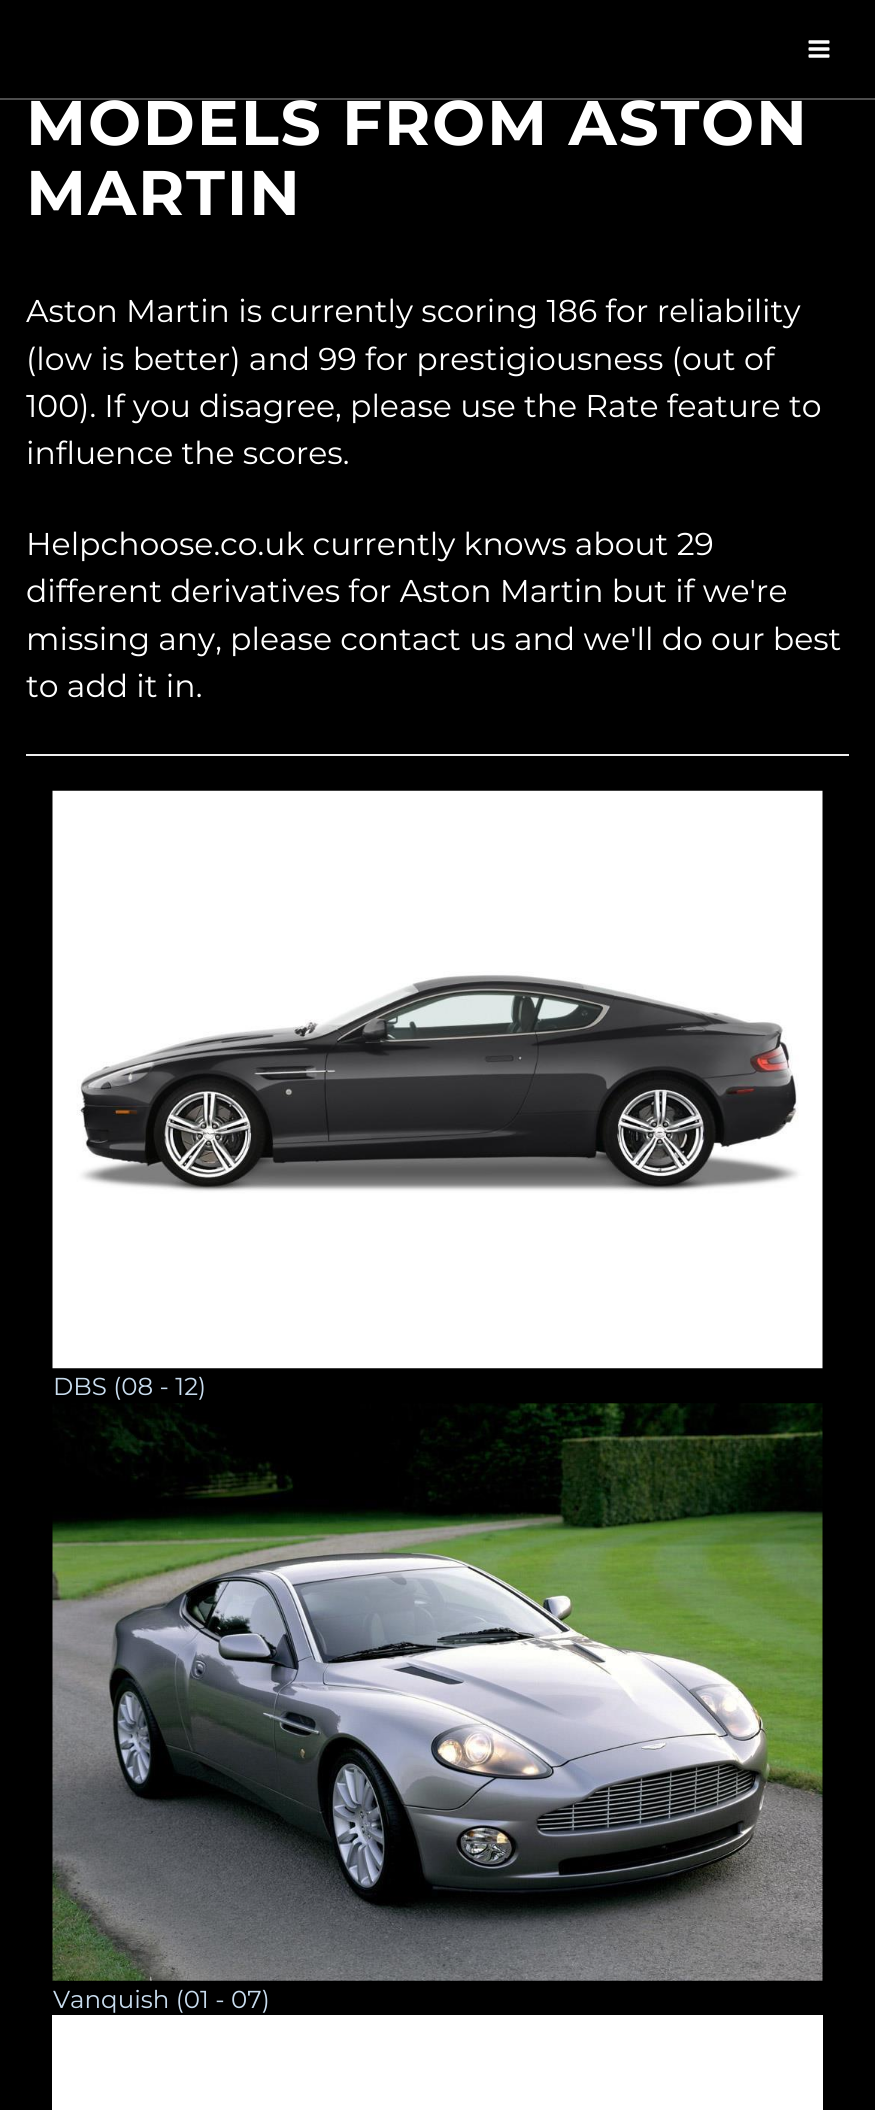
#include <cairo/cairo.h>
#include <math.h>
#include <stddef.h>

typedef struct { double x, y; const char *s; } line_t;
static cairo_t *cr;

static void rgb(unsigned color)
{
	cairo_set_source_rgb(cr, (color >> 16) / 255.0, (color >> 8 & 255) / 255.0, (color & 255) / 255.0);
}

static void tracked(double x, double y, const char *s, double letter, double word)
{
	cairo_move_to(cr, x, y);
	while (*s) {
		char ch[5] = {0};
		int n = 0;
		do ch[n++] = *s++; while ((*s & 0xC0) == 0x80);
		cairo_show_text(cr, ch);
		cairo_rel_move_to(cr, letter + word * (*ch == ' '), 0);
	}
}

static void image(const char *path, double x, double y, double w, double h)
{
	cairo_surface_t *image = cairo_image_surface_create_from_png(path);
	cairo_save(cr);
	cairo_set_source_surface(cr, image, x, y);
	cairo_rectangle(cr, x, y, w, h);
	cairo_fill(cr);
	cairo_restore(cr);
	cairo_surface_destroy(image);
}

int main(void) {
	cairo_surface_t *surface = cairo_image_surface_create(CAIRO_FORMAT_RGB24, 875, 2110);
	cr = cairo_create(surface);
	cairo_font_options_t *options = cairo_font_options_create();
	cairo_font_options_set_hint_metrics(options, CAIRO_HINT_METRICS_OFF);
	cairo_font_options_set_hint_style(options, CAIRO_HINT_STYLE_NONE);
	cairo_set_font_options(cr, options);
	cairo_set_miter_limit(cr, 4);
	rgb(0x000000);
	cairo_paint(cr);
	rgb(0x4d4d4d);
	cairo_rectangle(cr, 0, 98, 875, 2);
	cairo_fill(cr);
	image("img/1.png", 808, 40, 22, 18);
	rgb(0xeeeeee);
	cairo_rectangle(cr, 26, 754, 823, 2);
	cairo_fill(cr);
	image("img/2.png", 52, 790, 771, 579);
	image("img/3.png", 52, 1403, 771, 578);
	rgb(0xffffff);
	cairo_rectangle(cr, 52, 2015, 771, 95);
	cairo_fill(cr);
	cairo_select_font_face(cr, "Montserrat", CAIRO_FONT_SLANT_NORMAL, CAIRO_FONT_WEIGHT_BOLD);
	cairo_set_font_size(cr, 63);
	tracked(26, 145, "MODELS FROM ASTON", 1.75, 0);
	tracked(26, 215, "MARTIN", 1.75, 0);
	cairo_select_font_face(cr, "Montserrat", CAIRO_FONT_SLANT_NORMAL, CAIRO_FONT_WEIGHT_NORMAL);
	cairo_set_font_size(cr, 31.5);
	{
		static const line_t items[] = {
			{26, 322, "Aston Martin is currently scoring 186 for reliability"},
			{26, 370, "(low is better) and 99 for prestigiousness (out of"},
			{26, 417, "100). If you disagree, please use the Rate feature to"},
			{26, 464, "influence the scores."},
			{26, 555, "Helpchoose.co.uk currently knows about 29"},
			{26, 602, "different derivatives for Aston Martin but if we're"},
			{26, 650, "missing any, please contact us and we'll do our best"},
			{26, 697, "to add it in."},
		};
		for (size_t i = 0; i < sizeof items / sizeof *items; i++) {
			cairo_move_to(cr, items[i].x, items[i].y);
			cairo_show_text(cr, items[i].s);
		}
	}
	cairo_set_font_size(cr, 24.5);
	rgb(0xc8dcee);
	cairo_move_to(cr, 53, 1395);
	cairo_show_text(cr, "DBS (08 - 12)");
	cairo_move_to(cr, 53, 2008);
	cairo_show_text(cr, "Vanquish (01 - 07)");
	cairo_surface_write_to_png(surface, "page.png");
	cairo_font_options_destroy(options);
	cairo_destroy(cr);
	cairo_surface_destroy(surface);
	return 0;
}
